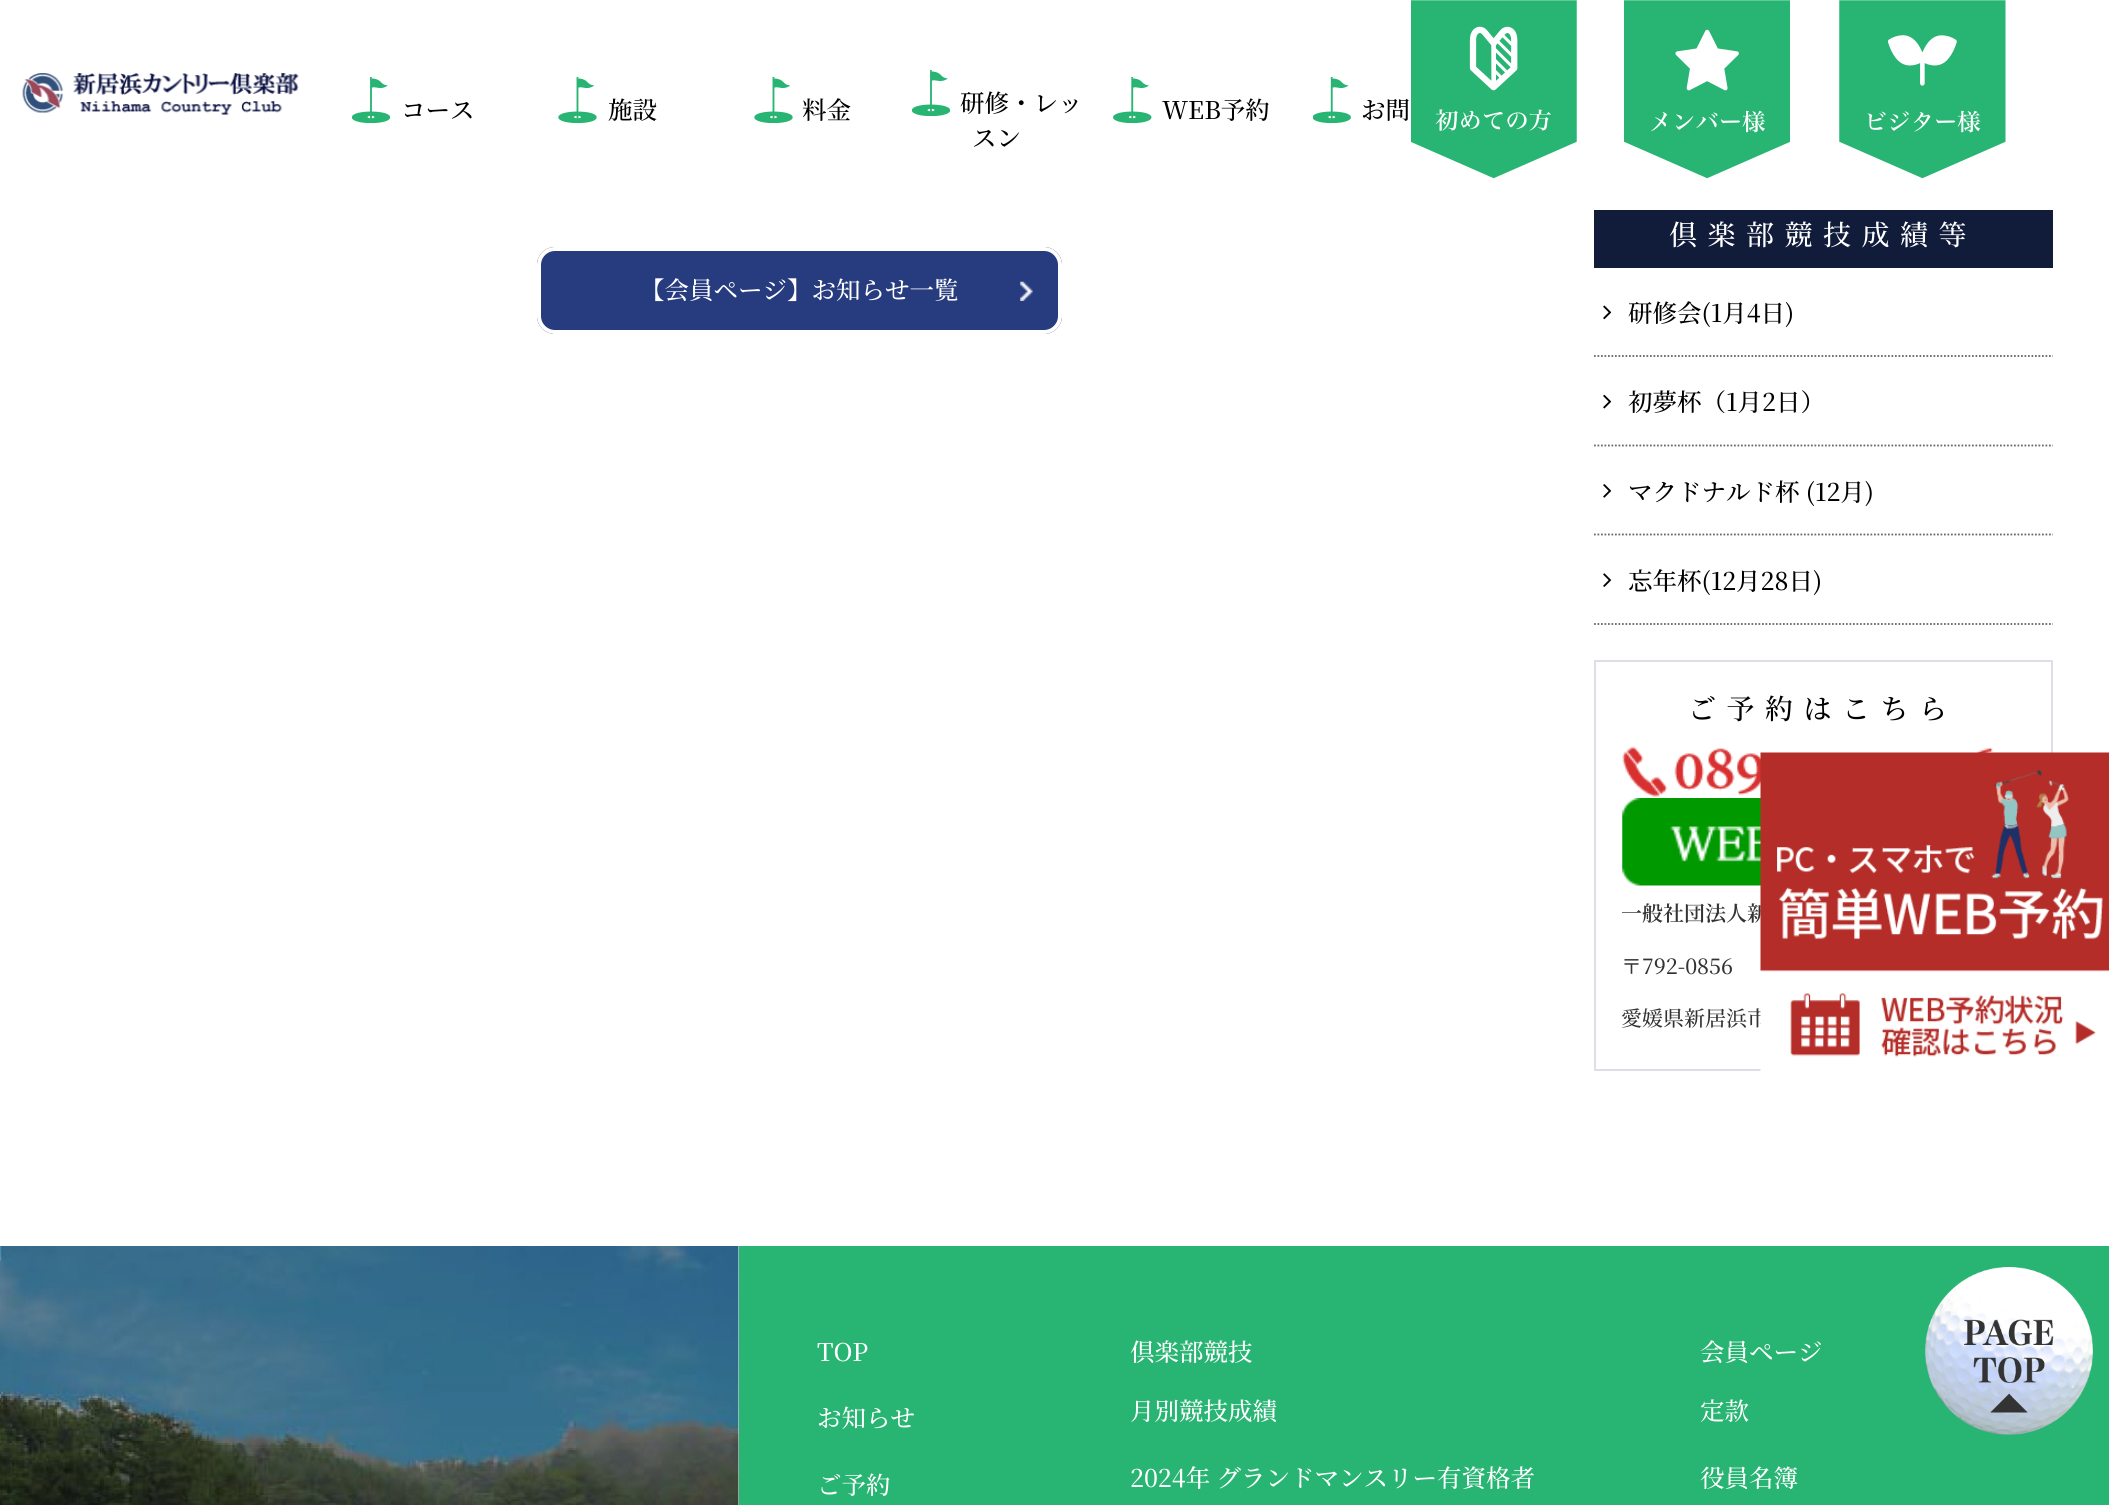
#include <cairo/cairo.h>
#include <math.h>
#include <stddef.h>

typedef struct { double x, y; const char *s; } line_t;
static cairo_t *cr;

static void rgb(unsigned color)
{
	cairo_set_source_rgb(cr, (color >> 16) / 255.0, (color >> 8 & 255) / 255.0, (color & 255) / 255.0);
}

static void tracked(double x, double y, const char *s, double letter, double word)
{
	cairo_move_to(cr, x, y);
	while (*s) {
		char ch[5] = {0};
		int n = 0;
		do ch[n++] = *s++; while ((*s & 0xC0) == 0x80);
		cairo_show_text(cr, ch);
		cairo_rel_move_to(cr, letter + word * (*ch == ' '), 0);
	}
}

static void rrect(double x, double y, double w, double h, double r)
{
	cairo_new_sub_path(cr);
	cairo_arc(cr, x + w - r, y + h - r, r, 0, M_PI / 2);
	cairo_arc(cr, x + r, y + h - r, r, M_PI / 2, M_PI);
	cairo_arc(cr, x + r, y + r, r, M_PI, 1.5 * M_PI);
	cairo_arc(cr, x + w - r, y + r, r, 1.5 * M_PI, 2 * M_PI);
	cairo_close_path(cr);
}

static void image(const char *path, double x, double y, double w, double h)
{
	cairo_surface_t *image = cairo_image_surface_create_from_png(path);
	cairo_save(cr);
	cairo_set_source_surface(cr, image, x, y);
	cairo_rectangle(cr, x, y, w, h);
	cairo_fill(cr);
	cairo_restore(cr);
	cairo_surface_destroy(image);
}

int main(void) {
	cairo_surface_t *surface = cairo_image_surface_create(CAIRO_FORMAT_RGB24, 2109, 1505);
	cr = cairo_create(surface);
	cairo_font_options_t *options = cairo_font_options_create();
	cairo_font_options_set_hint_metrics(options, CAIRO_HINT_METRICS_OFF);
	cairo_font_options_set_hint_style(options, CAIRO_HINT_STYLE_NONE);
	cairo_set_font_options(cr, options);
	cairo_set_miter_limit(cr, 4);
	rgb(0xffffff);
	cairo_paint(cr);
	image("img/1.png", 22, 73, 277, 42);
	image("img/2.png", 352, 77, 38, 46);
	image("img/3.png", 558, 77, 39, 46);
	image("img/3.png", 754, 77, 39, 46);
	image("img/2.png", 912, 70, 38, 46);
	image("img/4.png", 1113, 77, 39, 46);
	image("img/5.png", 1313, 77, 38, 46);
	image("img/6.png", 1411, 0, 166, 179);
	image("img/7.png", 1624, 0, 166, 179);
	image("img/8.png", 1839, 0, 167, 179);
	rgb(0x273c7e);
	rrect(537, 247, 525, 87, 18);
	cairo_fill(cr);
	image("img/9.png", 1020, 281, 13, 20);
	rrect(539, 249, 521, 83, 16);
	rgb(0xffffff);
	cairo_set_line_width(cr, 4);
	cairo_stroke(cr);
	rgb(0x111b3a);
	cairo_rectangle(cr, 1594, 210, 459, 58);
	cairo_fill(cr);
	cairo_new_path(cr);
	cairo_move_to(cr, 1594, 356);
	cairo_line_to(cr, 2053, 356);
	rgb(0x666666);
	cairo_set_line_width(cr, 1.8);
	cairo_set_dash(cr, (double[]){1.75, 1.75}, 2, 0);
	cairo_stroke(cr);
	image("img/10.png", 1603, 305, 9, 15);
	cairo_new_path(cr);
	cairo_move_to(cr, 1594, 445.5);
	cairo_line_to(cr, 2053, 445.5);
	cairo_stroke(cr);
	image("img/11.png", 1603, 394, 9, 15);
	cairo_new_path(cr);
	cairo_move_to(cr, 1594, 534.5);
	cairo_line_to(cr, 2053, 534.5);
	cairo_stroke(cr);
	image("img/12.png", 1603, 484, 9, 14);
	cairo_new_path(cr);
	cairo_move_to(cr, 1594, 624);
	cairo_line_to(cr, 2053, 624);
	cairo_stroke(cr);
	image("img/13.png", 1603, 573, 9, 14);
	cairo_rectangle(cr, 1595, 661, 457, 409);
	rgb(0xdcdfe6);
	cairo_set_line_width(cr, 2);
	cairo_set_dash(cr, NULL, 0, 0);
	cairo_stroke(cr);
	image("img/14.png", 1622, 746, 371, 51);
	image("img/15.png", 1622, 798, 139, 88);
	image("img/17.png", 0, 1246, 739, 259);
	rgb(0x28b472);
	cairo_rectangle(cr, 739, 1246, 1370, 259);
	cairo_fill(cr);
	image("img/18.png", 1925, 1267, 168, 168);
	cairo_select_font_face(cr, "Noto Serif JP Medium", CAIRO_FONT_SLANT_NORMAL, CAIRO_FONT_WEIGHT_NORMAL);
	cairo_set_font_size(cr, 24.5);
	rgb(0x000000);
	{
		static const line_t items[] = {
			{401, 119, "コース"},
			{608, 119, "施設"},
			{802, 119, "料金"},
			{960, 112, "研修・レッ"},
			{972, 147, "スン"},
			{1162, 119, "WEB予約"},
			{1361, 119, "お問"},
		};
		for (size_t i = 0; i < sizeof items / sizeof *items; i++) {
			cairo_move_to(cr, items[i].x, items[i].y);
			cairo_show_text(cr, items[i].s);
		}
	}
	rgb(0xffffff);
	cairo_move_to(cr, 640, 299);
	cairo_show_text(cr, "【会員ページ】お知らせ一覧");
	cairo_set_font_size(cr, 28);
	tracked(1669, 245, "倶楽部競技成績等", 10.5, 0);
	cairo_set_font_size(cr, 24.5);
	rgb(0x000000);
	{
		static const line_t items[] = {
			{1628, 322, "研修会(1月4日)"},
			{1628, 411, "初夢杯（1月2日）"},
			{1628, 501, "マクドナルド杯 (12月)"},
			{1628, 590, "忘年杯(12月28日)"},
		};
		for (size_t i = 0; i < sizeof items / sizeof *items; i++) {
			cairo_move_to(cr, items[i].x, items[i].y);
			cairo_show_text(cr, items[i].s);
		}
	}
	cairo_set_font_size(cr, 28);
	tracked(1688, 719, "ご予約はこちら", 10.5, 0);
	cairo_select_font_face(cr, "Noto Serif JP SemiBold", CAIRO_FONT_SLANT_NORMAL, CAIRO_FONT_WEIGHT_NORMAL);
	cairo_set_font_size(cr, 21);
	rgb(0x333333);
	cairo_move_to(cr, 1621, 921);
	cairo_show_text(cr, "一般社団法人新");
	cairo_select_font_face(cr, "Noto Serif JP Medium", CAIRO_FONT_SLANT_NORMAL, CAIRO_FONT_WEIGHT_NORMAL);
	cairo_move_to(cr, 1621, 974);
	cairo_show_text(cr, "〒792-0856");
	cairo_move_to(cr, 1621, 1026);
	cairo_show_text(cr, "愛媛県新居浜市");
	image("img/16.png", 1760, 752, 349, 319);
	cairo_set_font_size(cr, 24.5);
	rgb(0xffffff);
	{
		static const line_t items[] = {
			{817, 1361, "TOP"},
			{817, 1427, "お知らせ"},
			{817, 1494, "ご予約"},
			{1130, 1361, "倶楽部競技"},
			{1130, 1420, "月別競技成績"},
			{1130, 1487, "2024年 グランドマンスリー有資格者"},
			{1700, 1361, "会員ページ"},
			{1700, 1420, "定款"},
			{1700, 1487, "役員名簿"},
		};
		for (size_t i = 0; i < sizeof items / sizeof *items; i++) {
			cairo_move_to(cr, items[i].x, items[i].y);
			cairo_show_text(cr, items[i].s);
		}
	}
	cairo_surface_write_to_png(surface, "page.png");
	cairo_font_options_destroy(options);
	cairo_destroy(cr);
	cairo_surface_destroy(surface);
	return 0;
}
